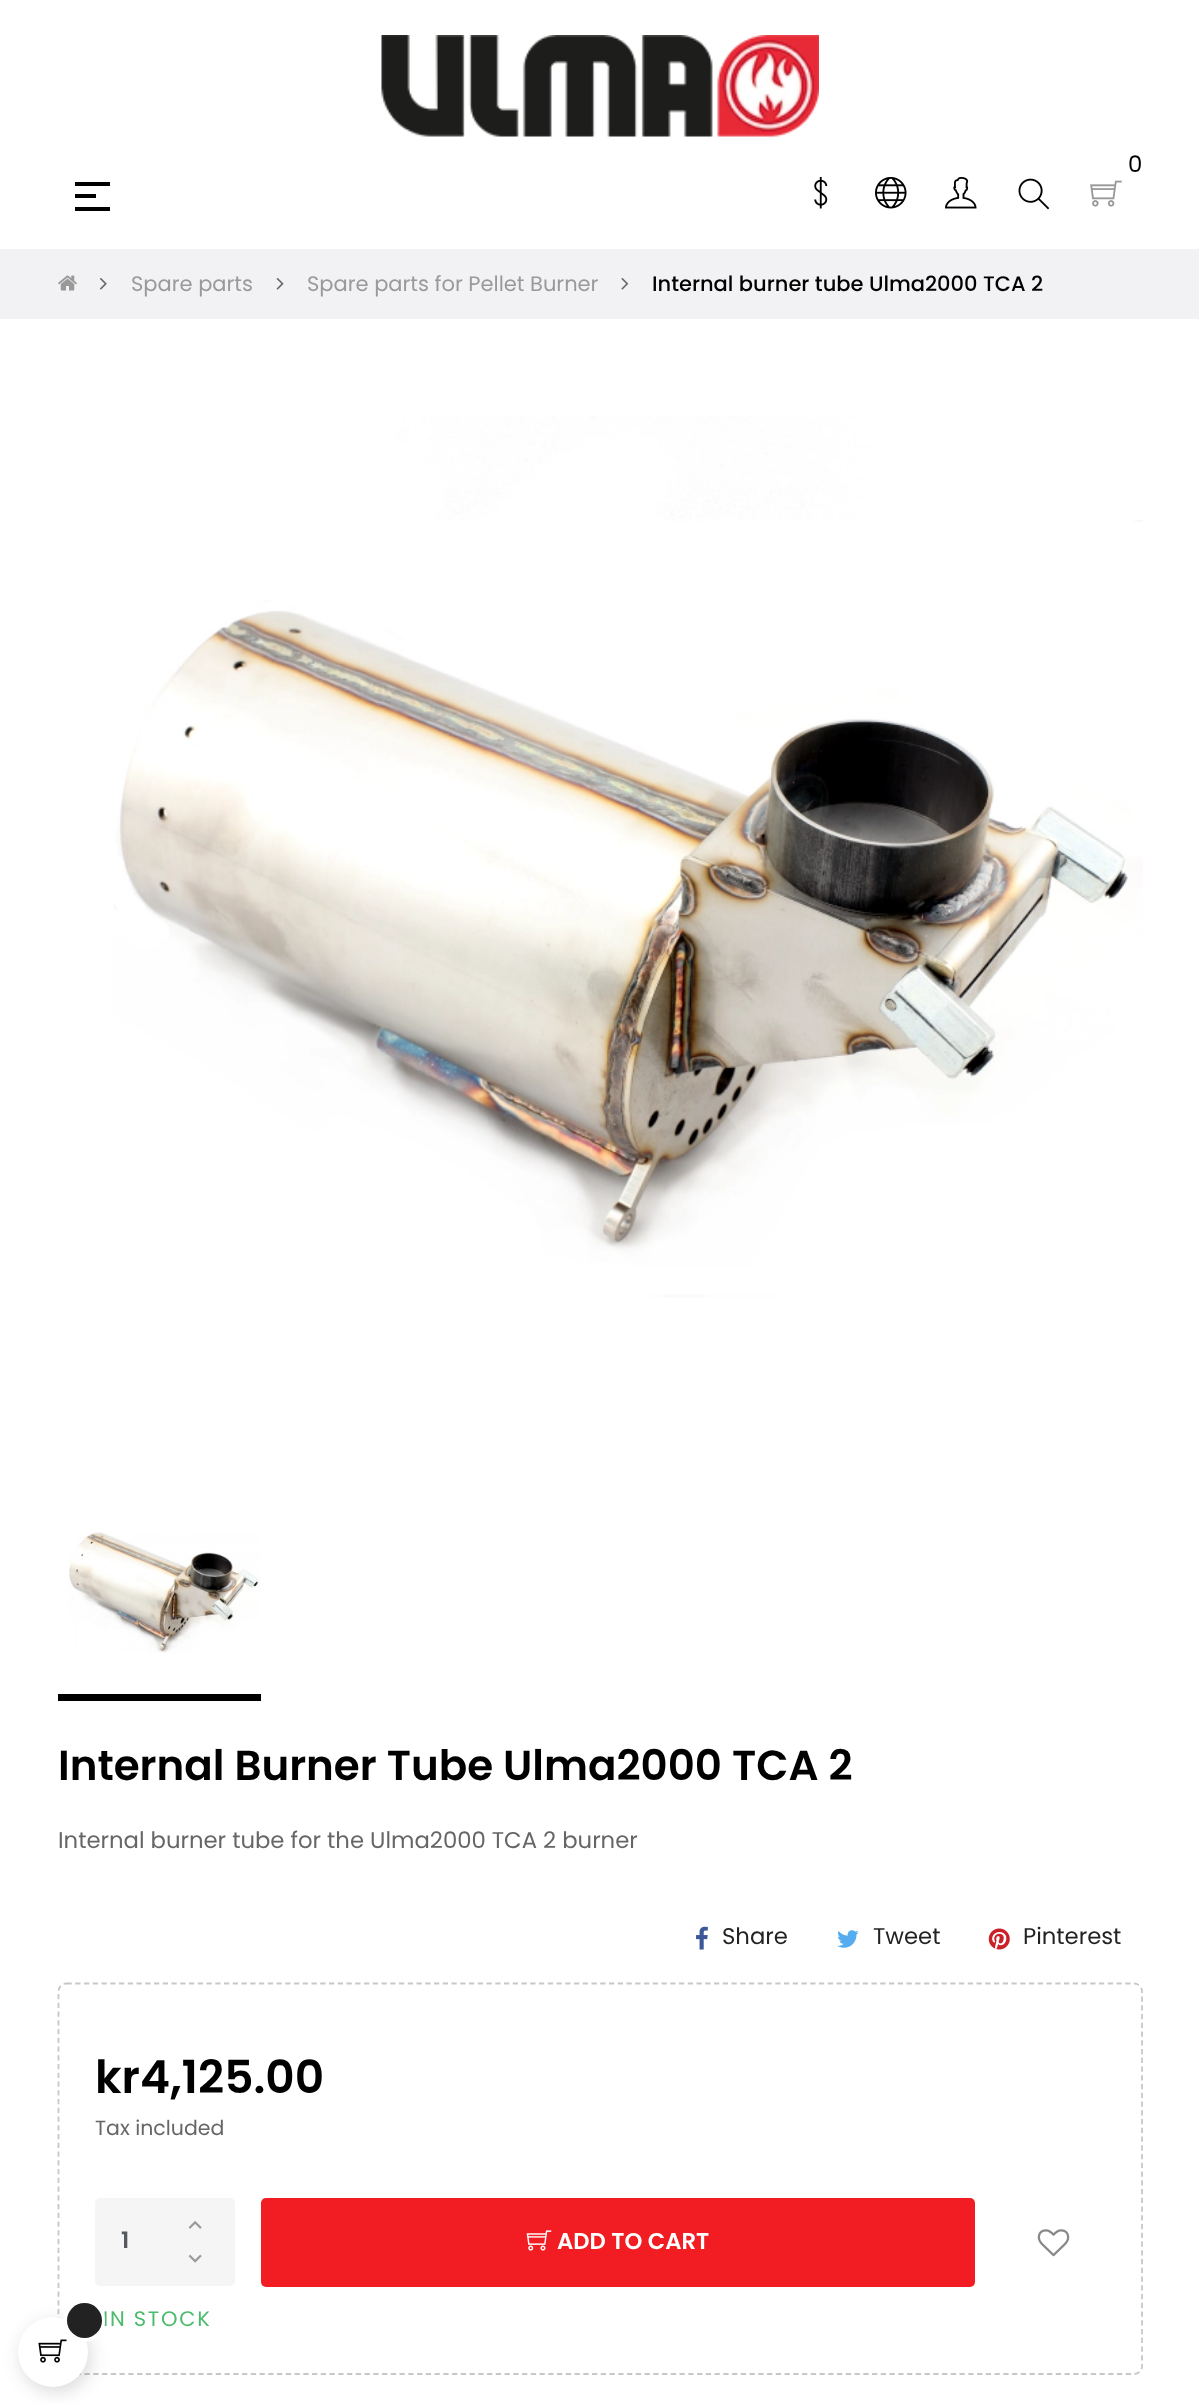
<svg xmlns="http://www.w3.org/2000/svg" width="1199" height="2404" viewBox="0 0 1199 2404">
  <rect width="100%" height="100%" fill="#fff"/>
  <image x="381" y="35" width="438" height="102" href="img/1.png"/>
  <image x="1090" y="180" width="32" height="27" href="img/2.png"/>
  <image x="814" y="177" width="14" height="32" href="img/3.png"/>
  <image x="875" y="177" width="32" height="32" href="img/4.png"/>
  <image x="945" y="177" width="32" height="32" href="img/5.png"/>
  <image x="1018" y="178" width="32" height="32" href="img/6.png"/>
  <path d="M75 182h35v4H75z" fill="#000"/>
  <path d="M75 207h35v4H75z" fill="#000"/>
  <path d="M75 194h21v4H75z" fill="#000"/>
  <path d="M0 249h1199v70H0z" fill="#f2f2f4"/>
  <image x="58" y="275" width="19" height="16" href="img/7.png"/>
  <image x="100" y="278" width="7" height="12" href="img/8.png"/>
  <image x="276" y="278" width="8" height="12" href="img/9.png"/>
  <image x="621" y="278" width="8" height="12" href="img/10.png"/>
  <image x="113" y="416" width="1030" height="882" href="img/11.png"/>
  <path d="M58 1694h203v7H58z" fill="#000"/>
  <image x="68" y="1532" width="193" height="121" href="img/12.png"/>
  <image x="696" y="1926" width="12" height="24" href="img/13.png"/>
  <image x="837" y="1930" width="22" height="18" href="img/14.png"/>
  <image x="988" y="1928" width="22" height="22" href="img/15.png"/>
  <path d="M66.5 1983.5H1134C1138.5 1983.5 1142 1987 1142 1991.5V2366C1142 2370.5 1138.5 2374 1134 2374H66.5C62 2374 58.5 2370.5 58.5 2366V1991.5C58.5 1987 62 1983.5 66.5 1983.5Z" fill="none" stroke="#c7c7c7" stroke-width="1.8" stroke-dasharray="5.25 3.5"/>
  <rect x="95" y="2198" width="140" height="88" rx="5" fill="#f5f5f5"/>
  <image x="188" y="2220" width="14" height="9" href="img/16.png"/>
  <image x="188" y="2254" width="14" height="9" href="img/17.png"/>
  <rect x="261" y="2198" width="714" height="89" rx="5" fill="#f11d22"/>
  <image x="526" y="2230" width="26" height="21" href="img/18.png"/>
  <image x="1037" y="2229" width="33" height="28" href="img/19.png"/>
  <rect x="21" y="2322" width="70" height="70" rx="35" fill="#00000026" filter="blur(9px)"/>
  <circle cx="53" cy="2352" r="35" fill="#fff"/>
  <image x="38" y="2339" width="29" height="24" href="img/20.png"/>
  <text x="1128" y="172" font-family="Poppins" font-size="22.75" fill="#000">0</text>
  <g font-family="Poppins" font-size="21" fill="#999">
    <text x="131" y="291">Spare parts</text>
    <text x="307" y="291">Spare parts for Pellet Burner</text>
  </g>
  <text x="652" y="291" font-family="Poppins" font-size="21" font-weight="500" fill="#000">Internal burner tube Ulma2000 TCA 2</text>
  <text x="58" y="1780" font-family="Poppins" font-size="42" font-weight="600" fill="#000">Internal Burner Tube Ulma2000 TCA 2</text>
  <text x="58" y="1848" font-family="Poppins" font-size="22.75" fill="#666">Internal burner tube for the Ulma2000 TCA 2 burner</text>
  <g font-family="Poppins" font-size="22.75" fill="#222">
    <text x="722" y="1944">Share</text>
    <text x="873" y="1944">Tweet</text>
    <text x="1023" y="1944">Pinterest</text>
  </g>
  <text x="95" y="2093" font-family="Poppins" font-size="45.5" font-weight="600" fill="#000">kr4,125.00</text>
  <text x="95" y="2135" font-family="Poppins" font-size="20.5" fill="#666">Tax included</text>
  <text x="121" y="2248" font-family="Poppins" font-size="22.75" font-weight="600" fill="#55595c">1</text>
  <text x="557" y="2249" font-family="Poppins" font-size="22.75" font-weight="600" fill="#fff">ADD TO CART</text>
  <text x="103" y="2326" font-family="Poppins" font-size="21" letter-spacing="1.75" fill="#4cbb6c">IN STOCK</text>
  <circle cx="84" cy="2321" r="19" fill="none" stroke="#fff" stroke-width="4"/>
  <circle cx="84.5" cy="2320.5" r="17.5" fill="#222"/>
</svg>
